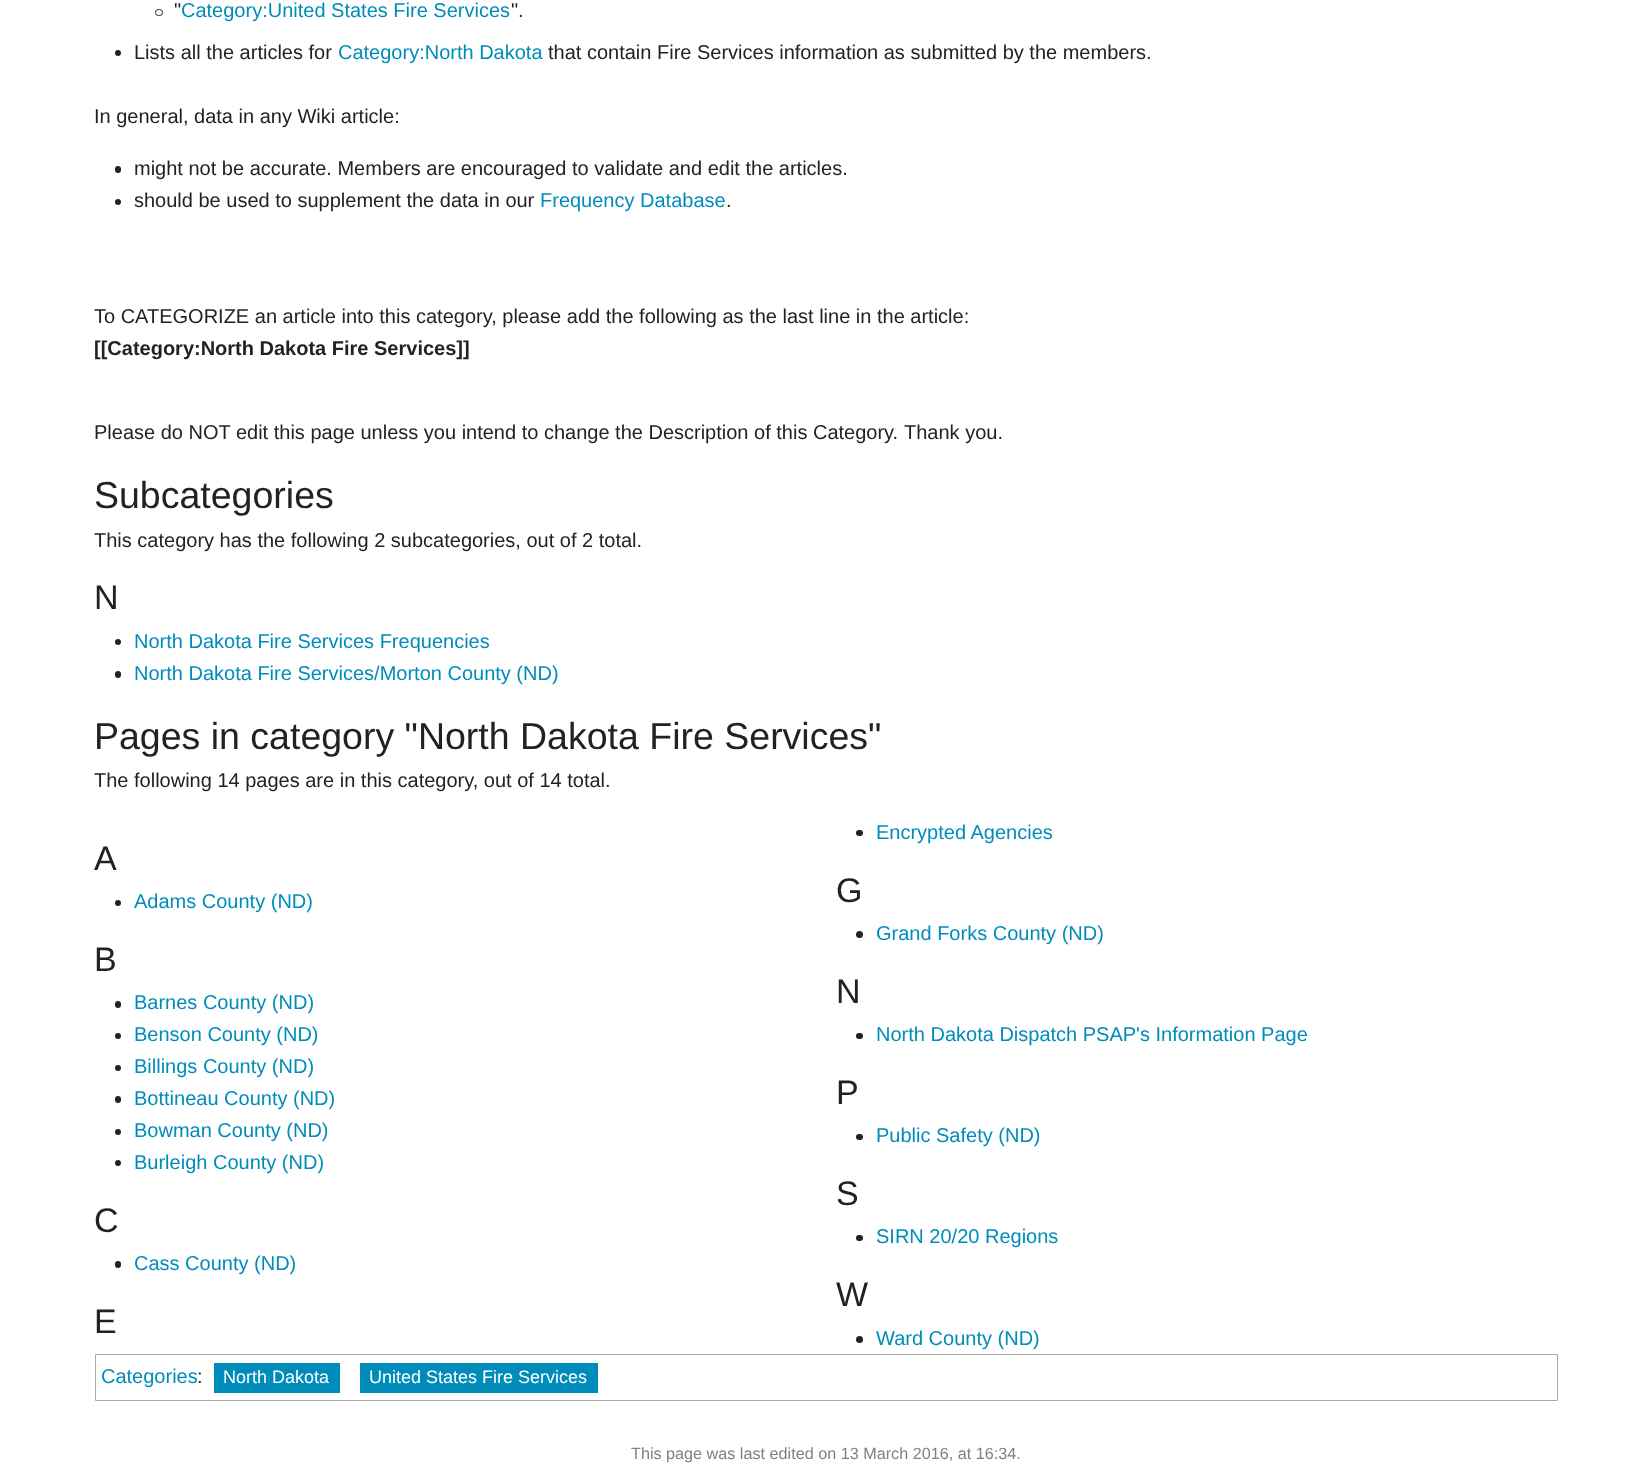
<svg xmlns="http://www.w3.org/2000/svg" width="1651" height="1474" viewBox="0 0 1651 1474">
  <rect width="100%" height="100%" fill="#fff"/>
  <rect x="155.5" y="9.5" width="7" height="6" rx="3" fill="none" stroke="#222"/>
  <circle cx="118" cy="53" r="3" fill="#222"/>
  <rect x="115" y="166" width="6" height="7" rx="3" fill="#222"/>
  <circle cx="118" cy="202" r="3" fill="#222"/>
  <circle cx="118" cy="642" r="3" fill="#222"/>
  <rect x="115" y="671" width="6" height="7" rx="3" fill="#222"/>
  <rect x="856" y="830" width="7" height="6" rx="3" fill="#222"/>
  <circle cx="118" cy="903" r="3" fill="#222"/>
  <circle cx="859.5" cy="934.5" r="3.5" fill="#222"/>
  <rect x="115" y="1001" width="6" height="7" rx="3" fill="#222"/>
  <circle cx="118" cy="1036" r="3" fill="#222"/>
  <circle cx="118" cy="1068" r="3" fill="#222"/>
  <rect x="115" y="1096" width="6" height="7" rx="3" fill="#222"/>
  <circle cx="118" cy="1132" r="3" fill="#222"/>
  <circle cx="118" cy="1163" r="3" fill="#222"/>
  <rect x="856" y="1033" width="7" height="6" rx="3" fill="#222"/>
  <rect x="856" y="1134" width="7" height="6" rx="3" fill="#222"/>
  <rect x="115" y="1261" width="6" height="7" rx="3" fill="#222"/>
  <rect x="856" y="1235" width="7" height="6" rx="3" fill="#222"/>
  <circle cx="859.5" cy="1339.5" r="3.5" fill="#222"/>
  <path d="M95.5 1354.5h1462v46H95.5z" fill="none" stroke="#aaa"/>
  <path d="M214 1363h126v30H214z" fill="#008cba"/>
  <path d="M360 1363h238v30H360z" fill="#008cba"/>
  <text x="174" y="17" font-family="Liberation Sans" font-size="20" fill="#222">"</text>
  <text x="181" y="17" font-family="Liberation Sans" font-size="20" fill="#008cba">Category:United States Fire Services</text>
  <g font-family="Liberation Sans" font-size="20" fill="#222">
    <text x="511" y="17">".</text>
    <text x="134" y="59">Lists all the articles for</text>
  </g>
  <text x="338" y="59" font-family="Liberation Sans" font-size="20" fill="#008cba">Category:North Dakota</text>
  <g font-family="Liberation Sans" font-size="20" fill="#222">
    <text x="548" y="59">that contain Fire Services information as submitted by the members.</text>
    <text x="94" y="123">In general, data in any Wiki article:</text>
    <text x="134" y="175">might not be accurate. Members are encouraged to validate and edit the articles.</text>
    <text x="134" y="207">should be used to supplement the data in our</text>
  </g>
  <text x="540" y="207" font-family="Liberation Sans" font-size="20" fill="#008cba">Frequency Database</text>
  <g font-family="Liberation Sans" font-size="20" fill="#222">
    <text x="726" y="207">.</text>
    <text x="94" y="323">To CATEGORIZE an article into this category, please add the following as the last line in the article:</text>
  </g>
  <text x="94" y="355" font-family="Liberation Sans" font-size="20" font-weight="bold" fill="#222">[[Category:North Dakota Fire Services]]</text>
  <g font-family="Liberation Sans" font-size="20" fill="#222">
    <text x="94" y="439">Please do NOT edit this page unless you intend to change the Description of this Category.</text>
    <text x="904" y="439">Thank you.</text>
  </g>
  <text x="94" y="508" font-family="Liberation Sans" font-size="37.5" fill="#222">Subcategories</text>
  <text x="94" y="547" font-family="Liberation Sans" font-size="20" fill="#222">This category has the following 2 subcategories, out of 2 total.</text>
  <text x="94" y="609" font-family="Liberation Sans" font-size="34" fill="#222">N</text>
  <g font-family="Liberation Sans" font-size="20" fill="#008cba">
    <text x="134" y="648">North Dakota Fire Services Frequencies</text>
    <text x="134" y="680">North Dakota Fire Services/Morton County (ND)</text>
  </g>
  <text x="94" y="749" font-family="Liberation Sans" font-size="37.5" fill="#222">Pages in category "North Dakota Fire Services"</text>
  <text x="94" y="787" font-family="Liberation Sans" font-size="20" fill="#222">The following 14 pages are in this category, out of 14 total.</text>
  <text x="876" y="839" font-family="Liberation Sans" font-size="20" fill="#008cba">Encrypted Agencies</text>
  <g font-family="Liberation Sans" font-size="34" fill="#222">
    <text x="94" y="1333">E</text>
    <text x="94" y="870">A</text>
  </g>
  <text x="134" y="908" font-family="Liberation Sans" font-size="20" fill="#008cba">Adams County (ND)</text>
  <text x="836" y="902" font-family="Liberation Sans" font-size="34" fill="#222">G</text>
  <text x="876" y="940" font-family="Liberation Sans" font-size="20" fill="#008cba">Grand Forks County (ND)</text>
  <text x="94" y="971" font-family="Liberation Sans" font-size="34" fill="#222">B</text>
  <g font-family="Liberation Sans" font-size="20" fill="#008cba">
    <text x="134" y="1009">Barnes County (ND)</text>
    <text x="134" y="1041">Benson County (ND)</text>
    <text x="134" y="1073">Billings County (ND)</text>
    <text x="134" y="1105">Bottineau County (ND)</text>
    <text x="134" y="1137">Bowman County (ND)</text>
    <text x="134" y="1169">Burleigh County (ND)</text>
  </g>
  <text x="836" y="1003" font-family="Liberation Sans" font-size="34" fill="#222">N</text>
  <text x="876" y="1041" font-family="Liberation Sans" font-size="20" fill="#008cba">North Dakota Dispatch PSAP's Information Page</text>
  <text x="836" y="1104" font-family="Liberation Sans" font-size="34" fill="#222">P</text>
  <text x="876" y="1142" font-family="Liberation Sans" font-size="20" fill="#008cba">Public Safety (ND)</text>
  <text x="94" y="1232" font-family="Liberation Sans" font-size="34" fill="#222">C</text>
  <text x="134" y="1270" font-family="Liberation Sans" font-size="20" fill="#008cba">Cass County (ND)</text>
  <text x="836" y="1205" font-family="Liberation Sans" font-size="34" fill="#222">S</text>
  <text x="876" y="1243" font-family="Liberation Sans" font-size="20" fill="#008cba">SIRN 20/20 Regions</text>
  <text x="836" y="1306" font-family="Liberation Sans" font-size="34" fill="#222">W</text>
  <g font-family="Liberation Sans" font-size="20" fill="#008cba">
    <text x="876" y="1345">Ward County (ND)</text>
    <text x="101" y="1383">Categories</text>
  </g>
  <text x="197" y="1383" font-family="Liberation Sans" font-size="20" fill="#222">:</text>
  <g font-family="Liberation Sans" font-size="18" fill="#fff">
    <text x="223" y="1383">North Dakota</text>
    <text x="369" y="1383">United States Fire Services</text>
  </g>
  <text x="631" y="1459" font-family="Liberation Sans" font-size="16.2" fill="#808080">This page was last edited on 13 March 2016, at 16:34.</text>
</svg>
